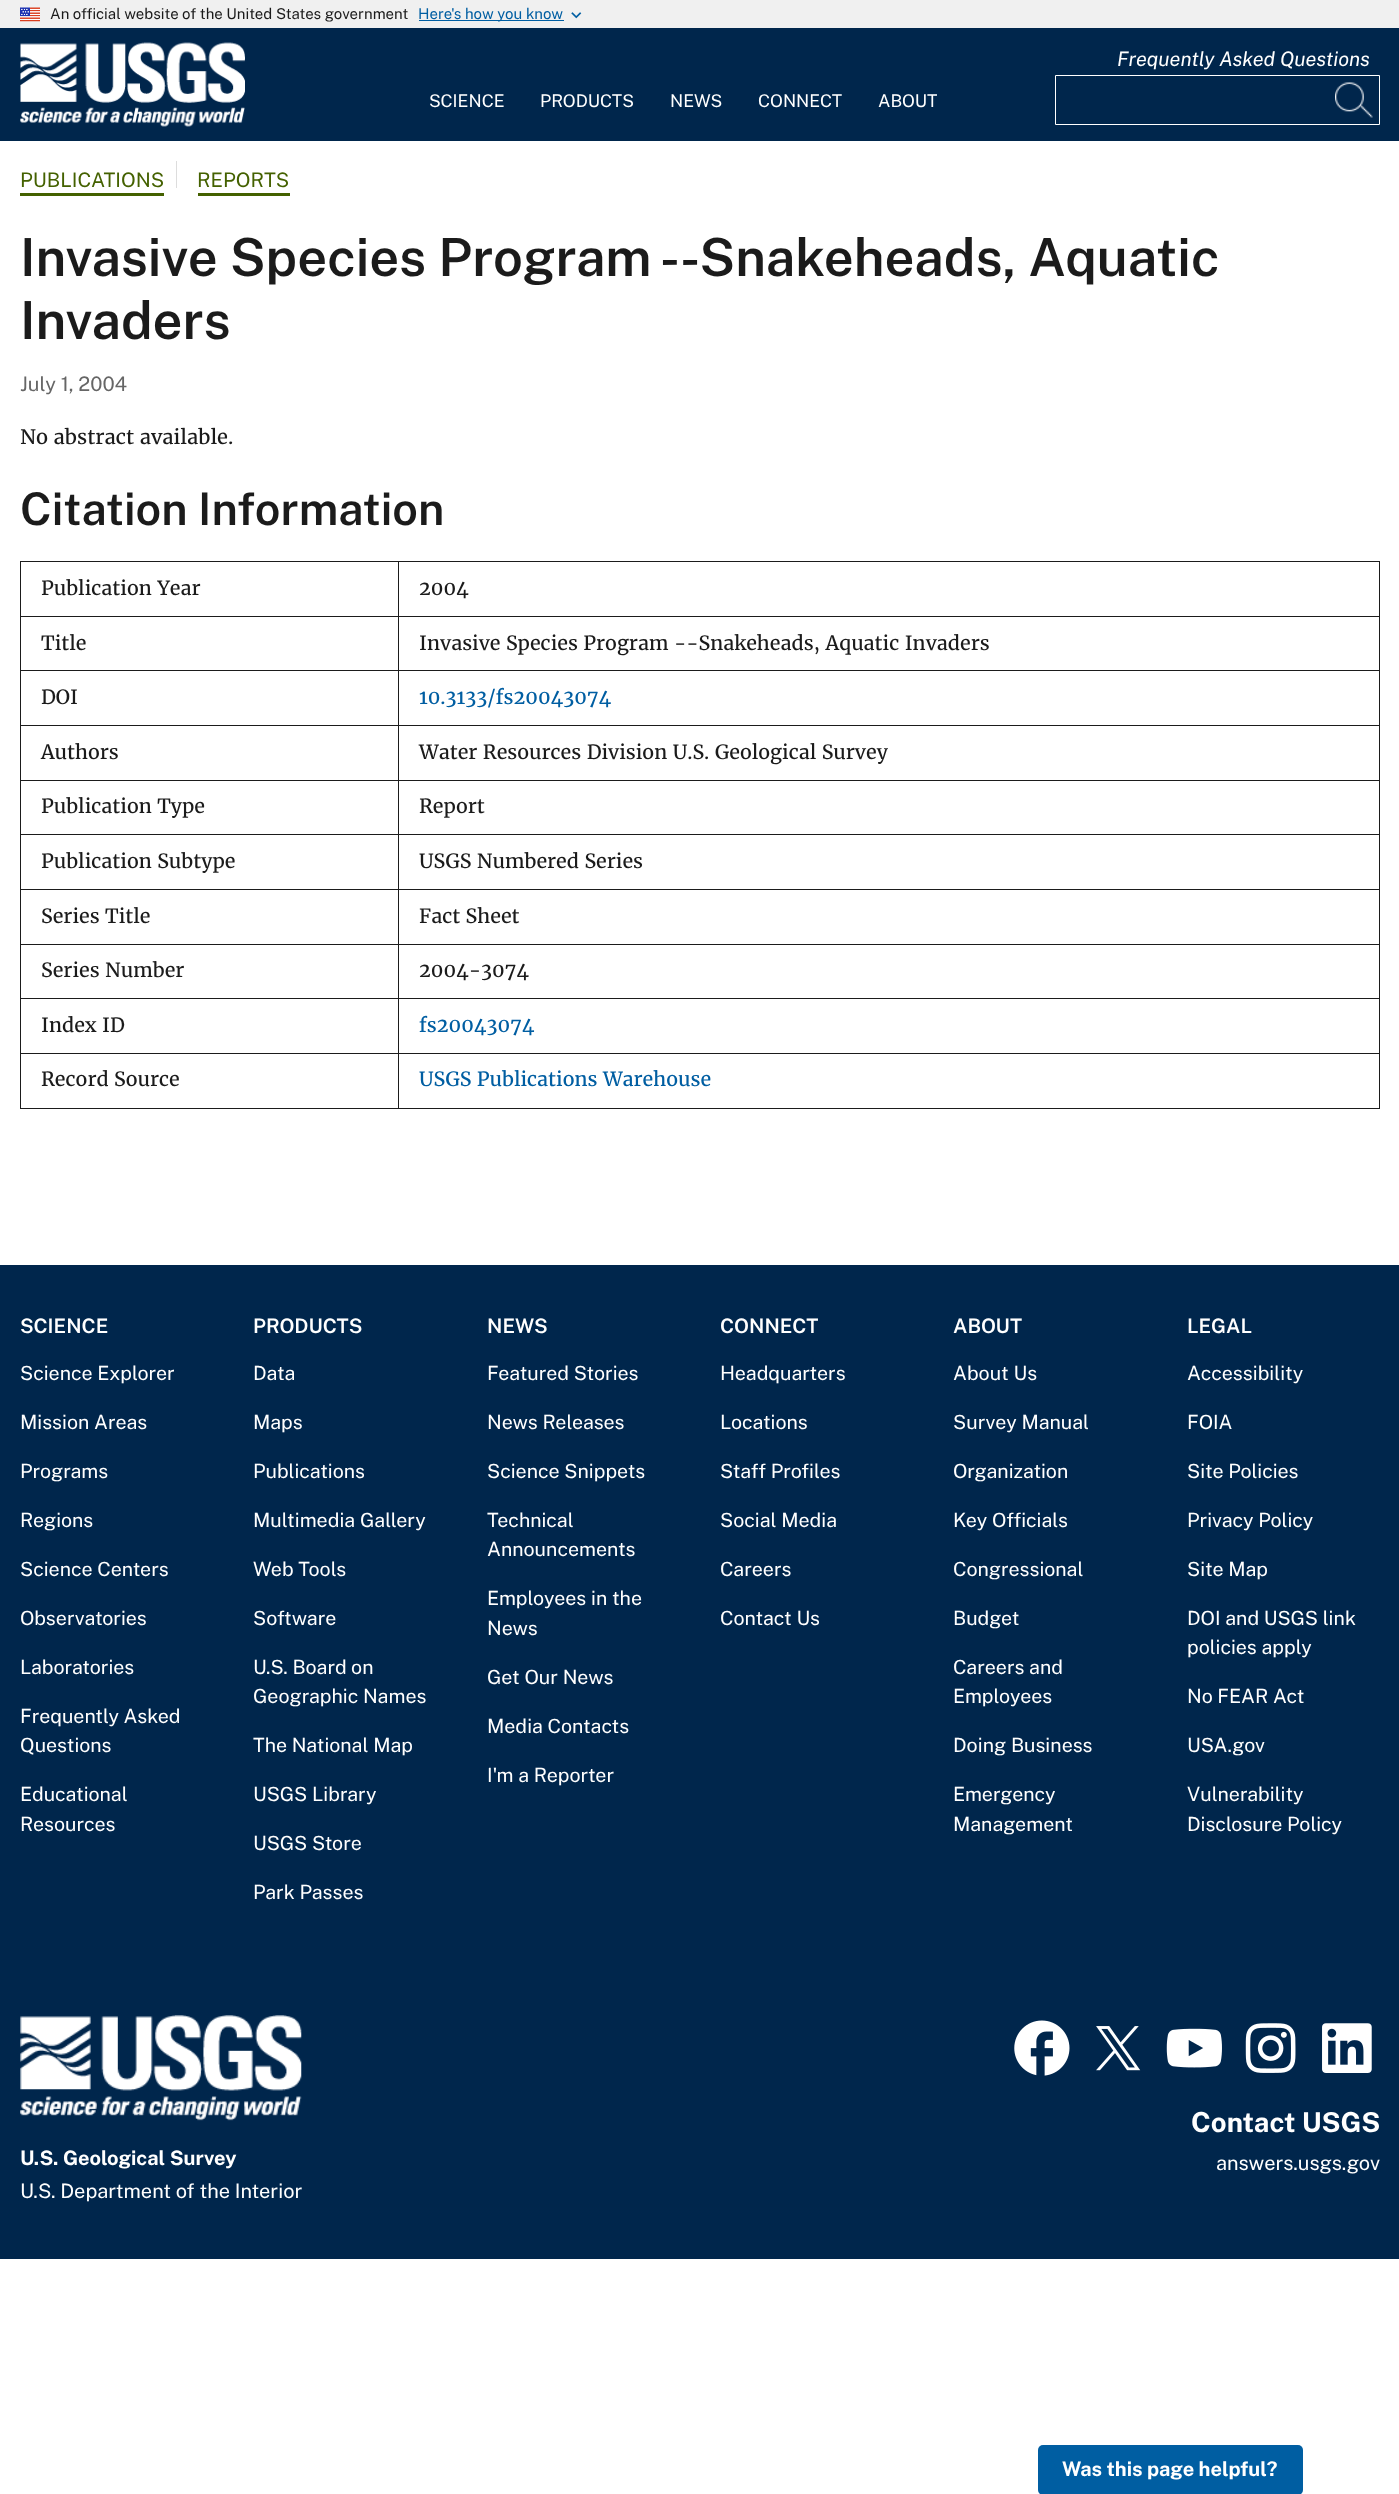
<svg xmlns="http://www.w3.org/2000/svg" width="1399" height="2494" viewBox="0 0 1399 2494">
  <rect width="100%" height="100%" fill="#fff"/>
  <path d="M0 0h1399v28H0z" fill="#f0f0f0"/>
  <image x="20" y="7" width="20" height="15" href="img/1.png"/>
  <path d="M419 20h145v1H419z" fill="#005ea2"/>
  <image x="571" y="12" width="11" height="7" href="img/2.png"/>
  <path d="M0 28h1399v113H0z" fill="#00264c"/>
  <image x="20" y="42" width="225" height="85" href="img/3.png"/>
  <path d="M1055.5 75.5h324v49H1055.5z" fill="none" stroke="#fff"/>
  <image x="1335" y="82" width="38" height="36" href="img/4.png"/>
  <path d="M20 193h144v3H20z" fill="#446100"/>
  <path d="M176 161h1v27H176z" fill="#ddd"/>
  <path d="M198 193h92v3H198z" fill="#446100"/>
  <path d="M398 561h982v1H398z" fill="#1b1b1b"/>
  <path d="M398 616h982v1H398z" fill="#1b1b1b"/>
  <path d="M398 670h982v1H398z" fill="#1b1b1b"/>
  <path d="M398 725h982v1H398z" fill="#1b1b1b"/>
  <path d="M398 780h982v1H398z" fill="#1b1b1b"/>
  <path d="M398 834h982v1H398z" fill="#1b1b1b"/>
  <path d="M398 889h982v1H398z" fill="#1b1b1b"/>
  <path d="M398 944h982v1H398z" fill="#1b1b1b"/>
  <path d="M398 998h982v1H398z" fill="#1b1b1b"/>
  <path d="M398 1053h982v1H398z" fill="#1b1b1b"/>
  <path d="M1379 1053h1v56H1379z" fill="#1b1b1b"/>
  <path d="M398 1108h982v1H398z" fill="#1b1b1b"/>
  <path d="M398 1053h1v56H398z" fill="#1b1b1b"/>
  <path d="M20 1053h379v1H20z" fill="#1b1b1b"/>
  <path d="M398 998h1v56H398z" fill="#1b1b1b"/>
  <path d="M20 998h379v1H20z" fill="#1b1b1b"/>
  <path d="M398 944h1v55H398z" fill="#1b1b1b"/>
  <path d="M20 944h379v1H20z" fill="#1b1b1b"/>
  <path d="M398 889h1v56H398z" fill="#1b1b1b"/>
  <path d="M20 889h379v1H20z" fill="#1b1b1b"/>
  <path d="M398 834h1v56H398z" fill="#1b1b1b"/>
  <path d="M20 834h379v1H20z" fill="#1b1b1b"/>
  <path d="M398 780h1v55H398z" fill="#1b1b1b"/>
  <path d="M20 780h379v1H20z" fill="#1b1b1b"/>
  <path d="M398 725h1v56H398z" fill="#1b1b1b"/>
  <path d="M20 725h379v1H20z" fill="#1b1b1b"/>
  <path d="M398 670h1v56H398z" fill="#1b1b1b"/>
  <path d="M20 670h379v1H20z" fill="#1b1b1b"/>
  <path d="M398 616h1v55H398z" fill="#1b1b1b"/>
  <path d="M20 616h379v1H20z" fill="#1b1b1b"/>
  <path d="M398 561h1v57H398z" fill="#1b1b1b"/>
  <path d="M20 561h379v1H20z" fill="#1b1b1b"/>
  <path d="M20 1108h379v1H20z" fill="#1b1b1b"/>
  <path d="M20 1053h1v56H20z" fill="#1b1b1b"/>
  <path d="M20 998h1v56H20z" fill="#1b1b1b"/>
  <path d="M20 944h1v55H20z" fill="#1b1b1b"/>
  <path d="M20 889h1v56H20z" fill="#1b1b1b"/>
  <path d="M20 834h1v56H20z" fill="#1b1b1b"/>
  <path d="M20 780h1v55H20z" fill="#1b1b1b"/>
  <path d="M20 725h1v56H20z" fill="#1b1b1b"/>
  <path d="M20 670h1v56H20z" fill="#1b1b1b"/>
  <path d="M20 616h1v55H20z" fill="#1b1b1b"/>
  <path d="M20 561h1v57H20z" fill="#1b1b1b"/>
  <path d="M1379 998h1v56H1379z" fill="#1b1b1b"/>
  <path d="M1379 944h1v55H1379z" fill="#1b1b1b"/>
  <path d="M1379 889h1v56H1379z" fill="#1b1b1b"/>
  <path d="M1379 834h1v56H1379z" fill="#1b1b1b"/>
  <path d="M1379 780h1v55H1379z" fill="#1b1b1b"/>
  <path d="M1379 725h1v56H1379z" fill="#1b1b1b"/>
  <path d="M1379 670h1v56H1379z" fill="#1b1b1b"/>
  <path d="M1379 616h1v55H1379z" fill="#1b1b1b"/>
  <path d="M1379 561h1v57H1379z" fill="#1b1b1b"/>
  <path d="M0 1265h1399v994H0z" fill="#00264c"/>
  <image x="20" y="2015" width="282" height="106" href="img/5.png"/>
  <image x="1014" y="2020" width="56" height="56" href="img/6.png"/>
  <image x="1096" y="2026" width="45" height="45" href="img/7.png"/>
  <image x="1166" y="2028" width="56" height="40" href="img/8.png"/>
  <image x="1245" y="2023" width="51" height="50" href="img/9.png"/>
  <image x="1322" y="2023" width="50" height="50" href="img/10.png"/>
  <rect x="1038" y="2445" width="265" height="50" rx="5" fill="#005ea2"/>
  <text x="50" y="19" font-family="Public Sans" font-size="15" fill="#1b1b1b">An official website of the United States government</text>
  <text x="418" y="19" font-family="Public Sans" font-size="15" fill="#005ea2">Here's how you know</text>
  <text x="1117" y="66" font-family="Public Sans" font-size="20" font-style="italic" fill="#fff">Frequently Asked Questions</text>
  <g font-family="Public Sans" font-size="17.5" fill="#fff">
    <text x="429" y="107">SCIENCE</text>
    <text x="540" y="107">PRODUCTS</text>
    <text x="670" y="107">NEWS</text>
    <text x="758" y="107">CONNECT</text>
    <text x="878" y="107">ABOUT</text>
  </g>
  <g font-family="Public Sans" font-size="20" fill="#446100">
    <text x="20" y="187">PUBLICATIONS</text>
    <text x="197" y="187">REPORTS</text>
  </g>
  <g font-family="Public Sans" font-size="52.5" font-weight="600" fill="#1b1b1b">
    <text x="20" y="276">Invasive Species Program --Snakeheads, Aquatic</text>
    <text x="20" y="339">Invaders</text>
  </g>
  <text x="20" y="391" font-family="Public Sans" font-size="20" fill="#666">July 1, 2004</text>
  <text x="20" y="444" font-family="Merriweather" font-size="20" fill="#1b1b1b">No abstract available.</text>
  <text x="20" y="525" font-family="Public Sans" font-size="45" font-weight="600" fill="#1b1b1b">Citation Information</text>
  <g font-family="Merriweather" font-size="19.6" fill="#1b1b1b">
    <text x="41" y="595">Publication Year</text>
    <text x="419" y="595">2004</text>
    <text x="41" y="650">Title</text>
    <text x="419" y="650">Invasive Species Program --Snakeheads, Aquatic Invaders</text>
    <text x="41" y="704">DOI</text>
  </g>
  <text x="419" y="704" font-family="Merriweather" font-size="19.6" fill="#005ea2">10.3133/fs20043074</text>
  <g font-family="Merriweather" font-size="19.6" fill="#1b1b1b">
    <text x="41" y="759">Authors</text>
    <text x="419" y="759">Water Resources Division U.S. Geological Survey</text>
    <text x="41" y="813">Publication Type</text>
    <text x="419" y="813">Report</text>
    <text x="41" y="868">Publication Subtype</text>
    <text x="419" y="868">USGS Numbered Series</text>
    <text x="41" y="923">Series Title</text>
    <text x="419" y="923">Fact Sheet</text>
    <text x="41" y="977">Series Number</text>
    <text x="419" y="977">2004-3074</text>
    <text x="41" y="1032">Index ID</text>
  </g>
  <text x="419" y="1032" font-family="Merriweather" font-size="19.6" fill="#005ea2">fs20043074</text>
  <text x="41" y="1086" font-family="Merriweather" font-size="19.6" fill="#1b1b1b">Record Source</text>
  <text x="419" y="1086" font-family="Merriweather" font-size="19.6" fill="#005ea2">USGS Publications Warehouse</text>
  <text x="20" y="1333" font-family="Public Sans" font-size="20" font-weight="600" fill="#fff">SCIENCE</text>
  <g font-family="Public Sans" font-size="19.6" fill="#fff">
    <text x="20" y="1380">Science Explorer</text>
    <text x="20" y="1429">Mission Areas</text>
    <text x="20" y="1478">Programs</text>
    <text x="20" y="1527">Regions</text>
    <text x="20" y="1576">Science Centers</text>
    <text x="20" y="1625">Observatories</text>
    <text x="20" y="1674">Laboratories</text>
    <text x="20" y="1723">Frequently Asked</text>
    <text x="20" y="1752">Questions</text>
    <text x="20" y="1801">Educational</text>
    <text x="20" y="1831">Resources</text>
  </g>
  <text x="253" y="1333" font-family="Public Sans" font-size="20" font-weight="600" fill="#fff">PRODUCTS</text>
  <g font-family="Public Sans" font-size="19.6" fill="#fff">
    <text x="253" y="1380">Data</text>
    <text x="253" y="1429">Maps</text>
    <text x="253" y="1478">Publications</text>
    <text x="253" y="1527">Multimedia Gallery</text>
    <text x="253" y="1576">Web Tools</text>
    <text x="253" y="1625">Software</text>
    <text x="253" y="1674">U.S. Board on</text>
    <text x="253" y="1703">Geographic Names</text>
    <text x="253" y="1752">The National Map</text>
    <text x="253" y="1801">USGS Library</text>
    <text x="253" y="1850">USGS Store</text>
    <text x="253" y="1899">Park Passes</text>
  </g>
  <text x="487" y="1333" font-family="Public Sans" font-size="20" font-weight="600" fill="#fff">NEWS</text>
  <g font-family="Public Sans" font-size="19.6" fill="#fff">
    <text x="487" y="1380">Featured Stories</text>
    <text x="487" y="1429">News Releases</text>
    <text x="487" y="1478">Science Snippets</text>
    <text x="487" y="1527">Technical</text>
    <text x="487" y="1556">Announcements</text>
    <text x="487" y="1605">Employees in the</text>
    <text x="487" y="1635">News</text>
    <text x="487" y="1684">Get Our News</text>
    <text x="487" y="1733">Media Contacts</text>
    <text x="487" y="1782">I'm a Reporter</text>
  </g>
  <text x="720" y="1333" font-family="Public Sans" font-size="20" font-weight="600" fill="#fff">CONNECT</text>
  <g font-family="Public Sans" font-size="19.6" fill="#fff">
    <text x="720" y="1380">Headquarters</text>
    <text x="720" y="1429">Locations</text>
    <text x="720" y="1478">Staff Profiles</text>
    <text x="720" y="1527">Social Media</text>
    <text x="720" y="1576">Careers</text>
    <text x="720" y="1625">Contact Us</text>
  </g>
  <text x="953" y="1333" font-family="Public Sans" font-size="20" font-weight="600" fill="#fff">ABOUT</text>
  <g font-family="Public Sans" font-size="19.6" fill="#fff">
    <text x="953" y="1380">About Us</text>
    <text x="953" y="1429">Survey Manual</text>
    <text x="953" y="1478">Organization</text>
    <text x="953" y="1527">Key Officials</text>
    <text x="953" y="1576">Congressional</text>
    <text x="953" y="1625">Budget</text>
    <text x="953" y="1674">Careers and</text>
    <text x="953" y="1703">Employees</text>
    <text x="953" y="1752">Doing Business</text>
    <text x="953" y="1801">Emergency</text>
    <text x="953" y="1831">Management</text>
  </g>
  <text x="1187" y="1333" font-family="Public Sans" font-size="20" font-weight="600" fill="#fff">LEGAL</text>
  <g font-family="Public Sans" font-size="19.6" fill="#fff">
    <text x="1187" y="1380">Accessibility</text>
    <text x="1187" y="1429">FOIA</text>
    <text x="1187" y="1478">Site Policies</text>
    <text x="1187" y="1527">Privacy Policy</text>
    <text x="1187" y="1576">Site Map</text>
    <text x="1187" y="1625">DOI and USGS link</text>
    <text x="1187" y="1654">policies apply</text>
    <text x="1187" y="1703">No FEAR Act</text>
    <text x="1187" y="1752">USA.gov</text>
    <text x="1187" y="1801">Vulnerability</text>
    <text x="1187" y="1831">Disclosure Policy</text>
  </g>
  <text x="20" y="2165" font-family="Public Sans" font-size="20" font-weight="bold" fill="#fff">U.S. Geological Survey</text>
  <text x="20" y="2198" font-family="Public Sans" font-size="20" fill="#fff">U.S. Department of the Interior</text>
  <text x="1191" y="2132" font-family="Public Sans" font-size="27.5" font-weight="bold" fill="#fff">Contact USGS</text>
  <text x="1216" y="2170" font-family="Public Sans" font-size="20" fill="#fff">answers.usgs.gov</text>
  <text x="1062" y="2476" font-family="Public Sans" font-size="20" font-weight="bold" fill="#fff">Was this page helpful?</text>
</svg>
